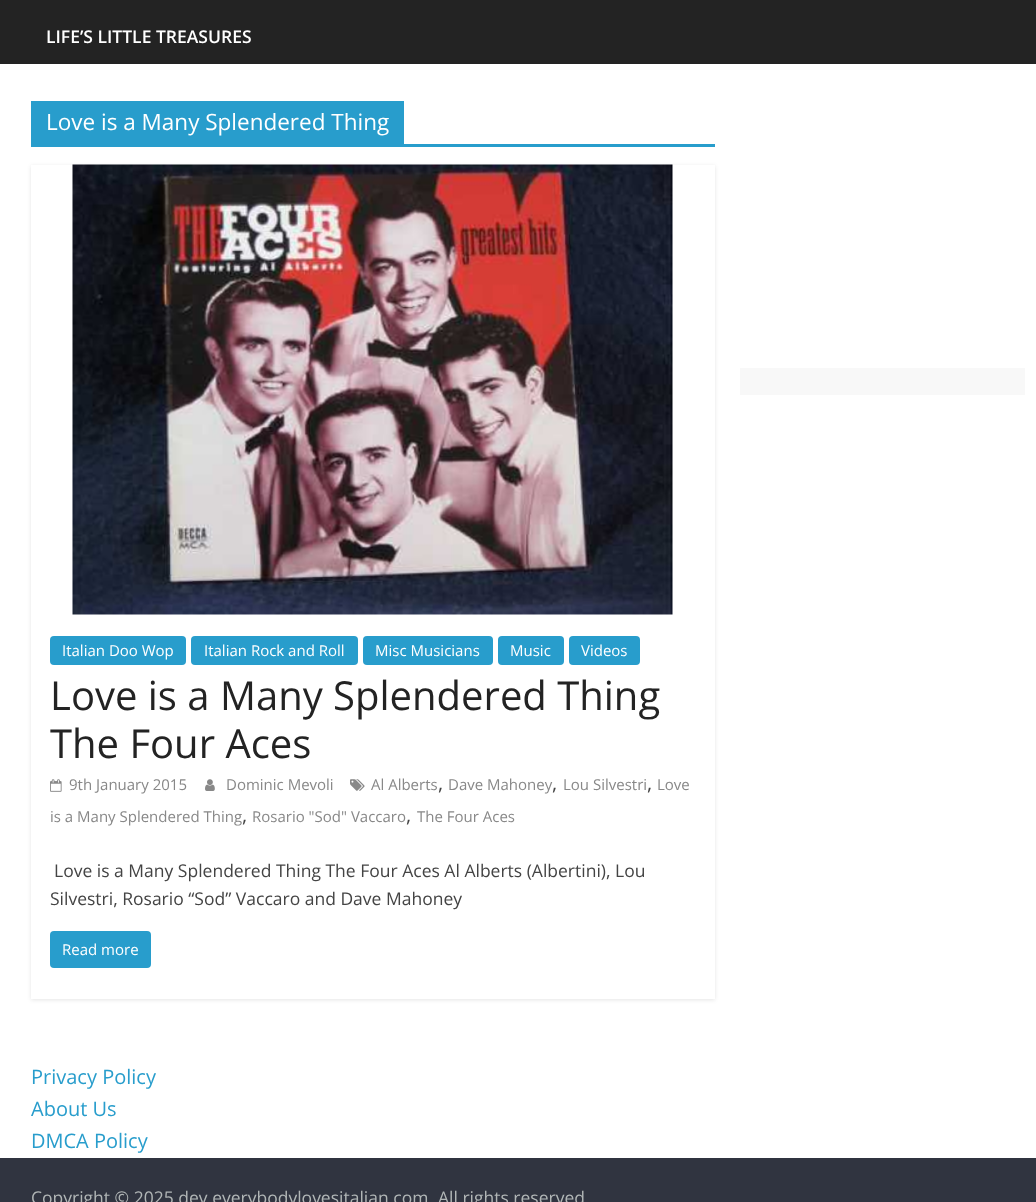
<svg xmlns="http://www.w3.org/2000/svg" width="1036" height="1202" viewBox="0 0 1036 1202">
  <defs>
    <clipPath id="clip1"><path d="M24 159H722V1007H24ZM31 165H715V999H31Z" clip-rule="evenodd"/></clipPath>
  </defs>
  <rect width="100%" height="100%" fill="#fff"/>
  <path d="M0 0h1036v64H0z" fill="#232323"/>
  <path d="M31 144h684v3H31z" fill="#289dcc"/>
  <path d="M31 101h373v43H31z" fill="#289dcc"/>
  <g clip-path="url(#clip1)">
    <path d="M31 166h684v834H31z" fill="#0000001a" filter="blur(2px)"/>
  </g>
  <image x="72" y="164" width="601" height="451" href="img/1.png"/>
  <rect x="50" y="636" width="136" height="29" rx="4" fill="#289dcc"/>
  <rect x="191" y="636" width="167" height="29" rx="4" fill="#289dcc"/>
  <rect x="363" y="636" width="130" height="29" rx="4" fill="#289dcc"/>
  <rect x="498" y="636" width="66" height="29" rx="4" fill="#289dcc"/>
  <rect x="569" y="636" width="71" height="29" rx="4" fill="#289dcc"/>
  <image x="350" y="779" width="15" height="12" href="img/2.png"/>
  <image x="50" y="779" width="12" height="13" href="img/3.png"/>
  <image x="205" y="779" width="10" height="12" href="img/4.png"/>
  <rect x="50" y="931" width="101" height="37" rx="4" fill="#289dcc"/>
  <path d="M740 368h285v27H740z" fill="#f8f8f8"/>
  <path d="M0 1158h1036v44H0z" fill="#303440"/>
  <text x="46" y="43" font-family="Open Sans" font-size="17.5" font-weight="600" fill="#fff">LIFE’S LITTLE TREASURES</text>
  <text x="46" y="130" font-family="Open Sans" font-size="22.5" fill="#fff">Love is a Many Splendered Thing</text>
  <g font-family="Open Sans" font-size="15" fill="#fff">
    <text x="62" y="656">Italian Doo Wop</text>
    <text x="204" y="656">Italian Rock and Roll</text>
    <text x="375" y="656">Misc Musicians</text>
    <text x="510" y="656">Music</text>
    <text x="581" y="656">Videos</text>
  </g>
  <g font-family="Open Sans" font-size="40" fill="#232323">
    <text x="50" y="710">Love is a Many Splendered Thing</text>
    <text x="50" y="758">The Four Aces</text>
  </g>
  <text x="371" y="790" font-family="Open Sans" font-size="15" fill="#888">Al Alberts</text>
  <text x="438" y="790" font-family="Open Sans" font-size="20" fill="#444">,</text>
  <text x="448" y="790" font-family="Open Sans" font-size="15" fill="#888">Dave Mahoney</text>
  <text x="552" y="790" font-family="Open Sans" font-size="20" fill="#444">,</text>
  <text x="563" y="790" font-family="Open Sans" font-size="15" fill="#888">Lou Silvestri</text>
  <text x="647" y="790" font-family="Open Sans" font-size="20" fill="#444">,</text>
  <g font-family="Open Sans" font-size="15" fill="#888">
    <text x="657" y="790">Love</text>
    <text x="50" y="822">is a Many Splendered Thing</text>
  </g>
  <text x="242" y="822" font-family="Open Sans" font-size="20" fill="#444">,</text>
  <text x="252" y="822" font-family="Open Sans" font-size="15" fill="#888">Rosario "Sod" Vaccaro</text>
  <text x="406" y="822" font-family="Open Sans" font-size="20" fill="#444">,</text>
  <g font-family="Open Sans" font-size="15" fill="#888">
    <text x="417" y="822">The Four Aces</text>
    <text x="69" y="790">9th January 2015</text>
    <text x="226" y="790">Dominic Mevoli</text>
  </g>
  <g font-family="Open Sans" font-size="17.5" fill="#444">
    <text x="54" y="877">Love is a Many Splendered Thing The Four Aces Al Alberts (Albertini), Lou</text>
    <text x="50" y="905">Silvestri, Rosario “Sod” Vaccaro and Dave Mahoney</text>
  </g>
  <text x="62" y="955" font-family="Open Sans" font-size="15" fill="#fff">Read more</text>
  <g font-family="Open Sans" font-size="20" fill="#289dcc">
    <text x="31" y="1084">Privacy Policy</text>
    <text x="31" y="1116">About Us</text>
    <text x="31" y="1148">DMCA Policy</text>
  </g>
  <g font-family="Open Sans" font-size="17.5" fill="#b1b6b6">
    <text x="31" y="1204">Copyright © 2025 dev.everybodylovesitalian.com</text>
    <text x="438" y="1204">All rights reserved</text>
  </g>
</svg>
